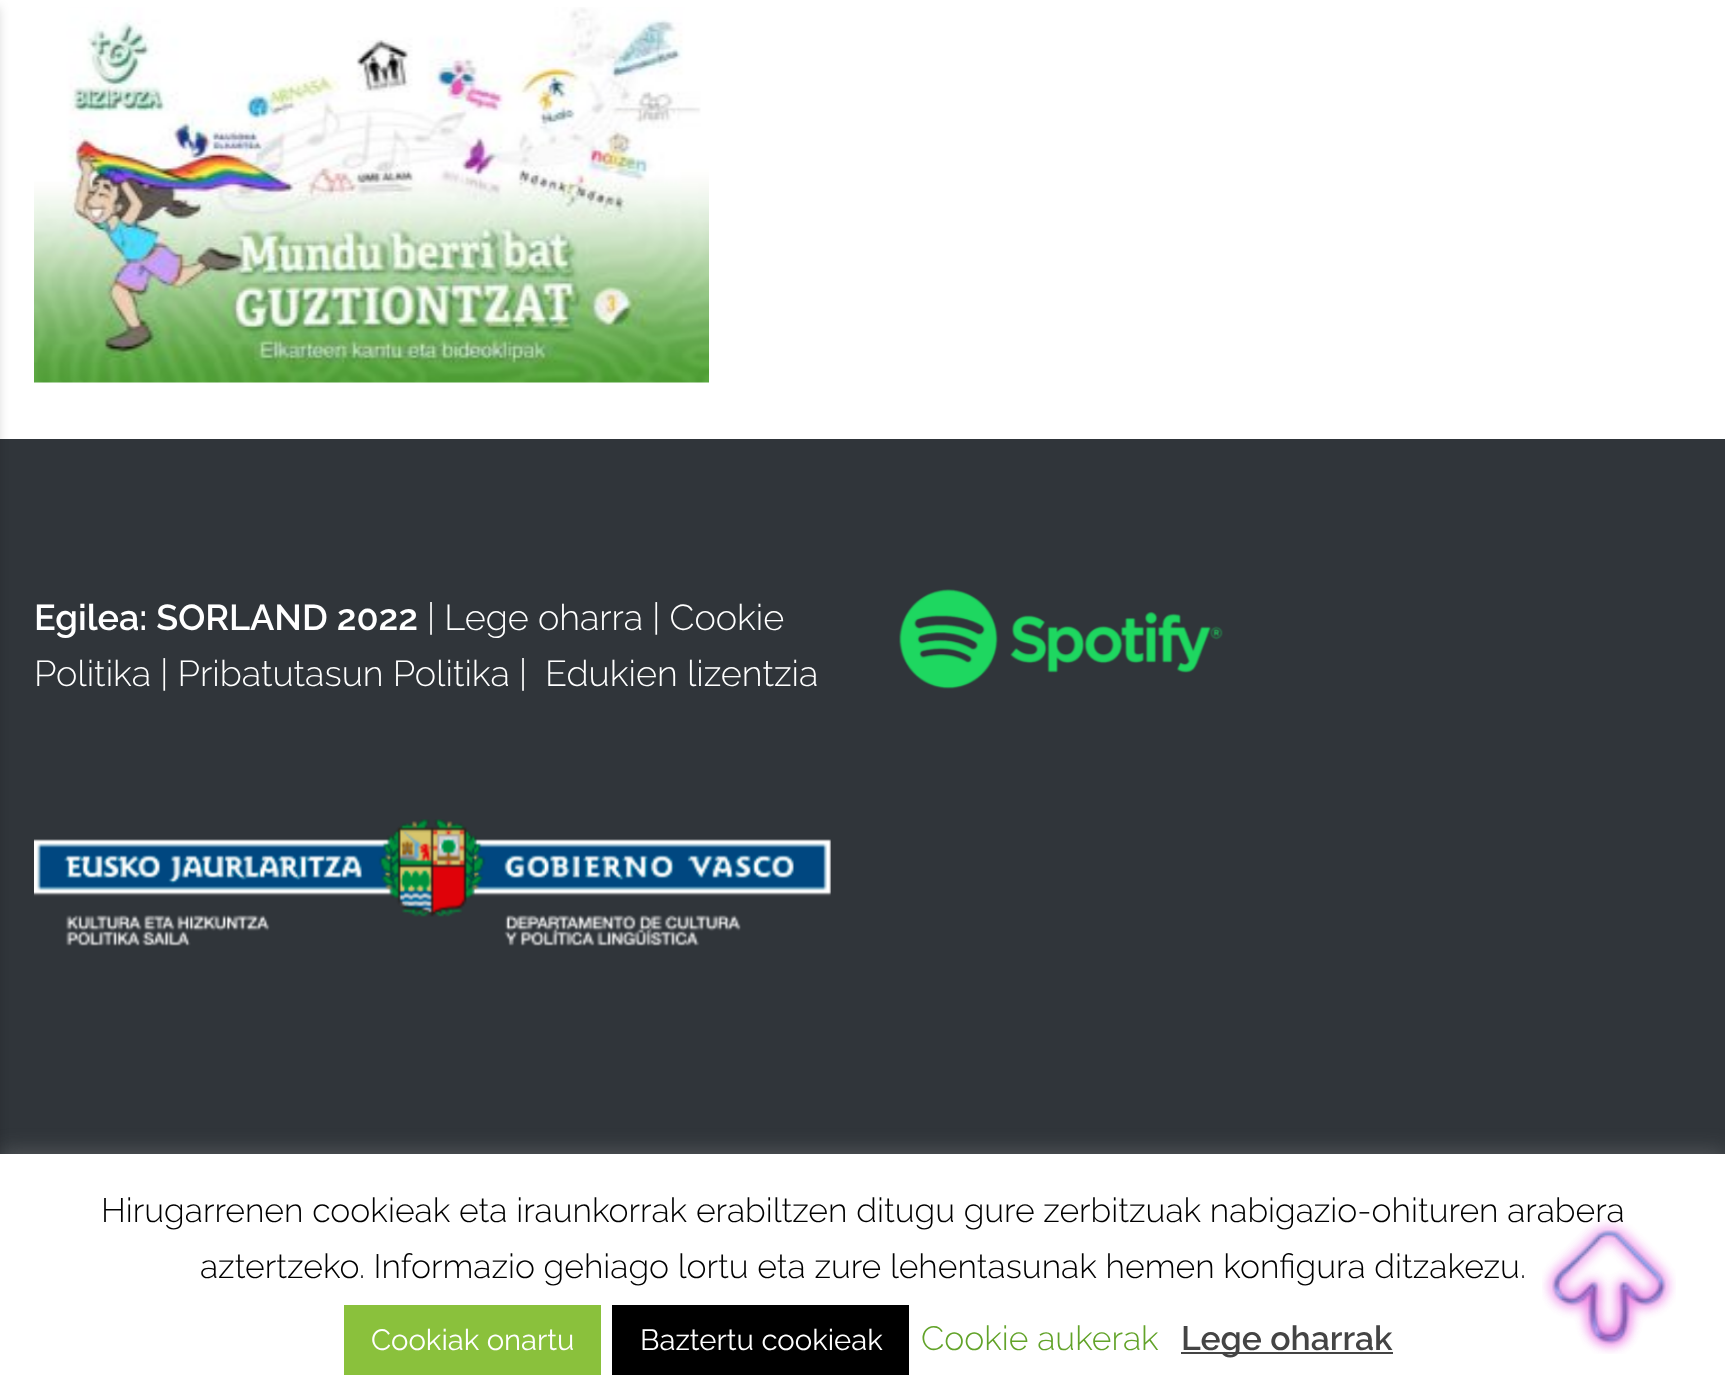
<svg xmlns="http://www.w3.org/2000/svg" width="1725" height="1400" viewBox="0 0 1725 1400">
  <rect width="100%" height="100%" fill="#fff"/>
  <path d="M0 439h1725v715H0z" fill="#30353a"/>
  <path d="M-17 7h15v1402H-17z" fill="#00000033" filter="blur(5.5px)"/>
  <image x="34" y="7" width="675" height="376" href="img/1.png"/>
  <image x="34" y="819" width="797" height="127" href="img/2.png"/>
  <image x="899" y="589" width="324" height="100" href="img/3.png"/>
  <path d="M0 1152h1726v248H0z" fill="#acabab4d" filter="blur(11px)"/>
  <path d="M0 1154h1725v246H0z" fill="#fff"/>
  <path d="M344 1305h257v70H344z" fill="#8ac13c"/>
  <path d="M612 1305h297v70H612z" fill="#000"/>
  <path d="M1181 1352h212v2H1181z" fill="#444"/>
  <text x="34" y="630" font-family="Raleway" font-size="36" font-weight="600" fill="#fff">Egilea: SORLAND 2022</text>
  <g font-family="Raleway" font-size="36" font-weight="300" fill="#fff">
    <text x="427" y="630">| Lege oharra | Cookie</text>
    <text x="34" y="686">Politika | Pribatutasun Politika |</text>
    <text x="545" y="686">Edukien lizentzia</text>
  </g>
  <g font-family="Raleway" font-size="33.75" font-weight="300" fill="#000">
    <text x="101" y="1222">Hirugarrenen cookieak eta iraunkorrak erabiltzen ditugu gure zerbitzuak nabigazio-ohituren arabera</text>
    <text x="200" y="1278">aztertzeko. Informazio gehiago lortu eta zure lehentasunak hemen konfigura ditzakezu.</text>
  </g>
  <g font-family="Raleway" font-size="29.25" fill="#fff">
    <text x="371" y="1350">Cookiak onartu</text>
    <text x="640" y="1350">Baztertu cookieak</text>
  </g>
  <text x="921" y="1350" font-family="Raleway" font-size="33.75" font-weight="300" fill="#62a329">Cookie aukerak</text>
  <text x="1181" y="1350" font-family="Raleway" font-size="33.75" font-weight="600" fill="#444">Lege oharrak</text>
  <image x="1542" y="1219" width="134" height="135" href="img/4.png"/>
</svg>
